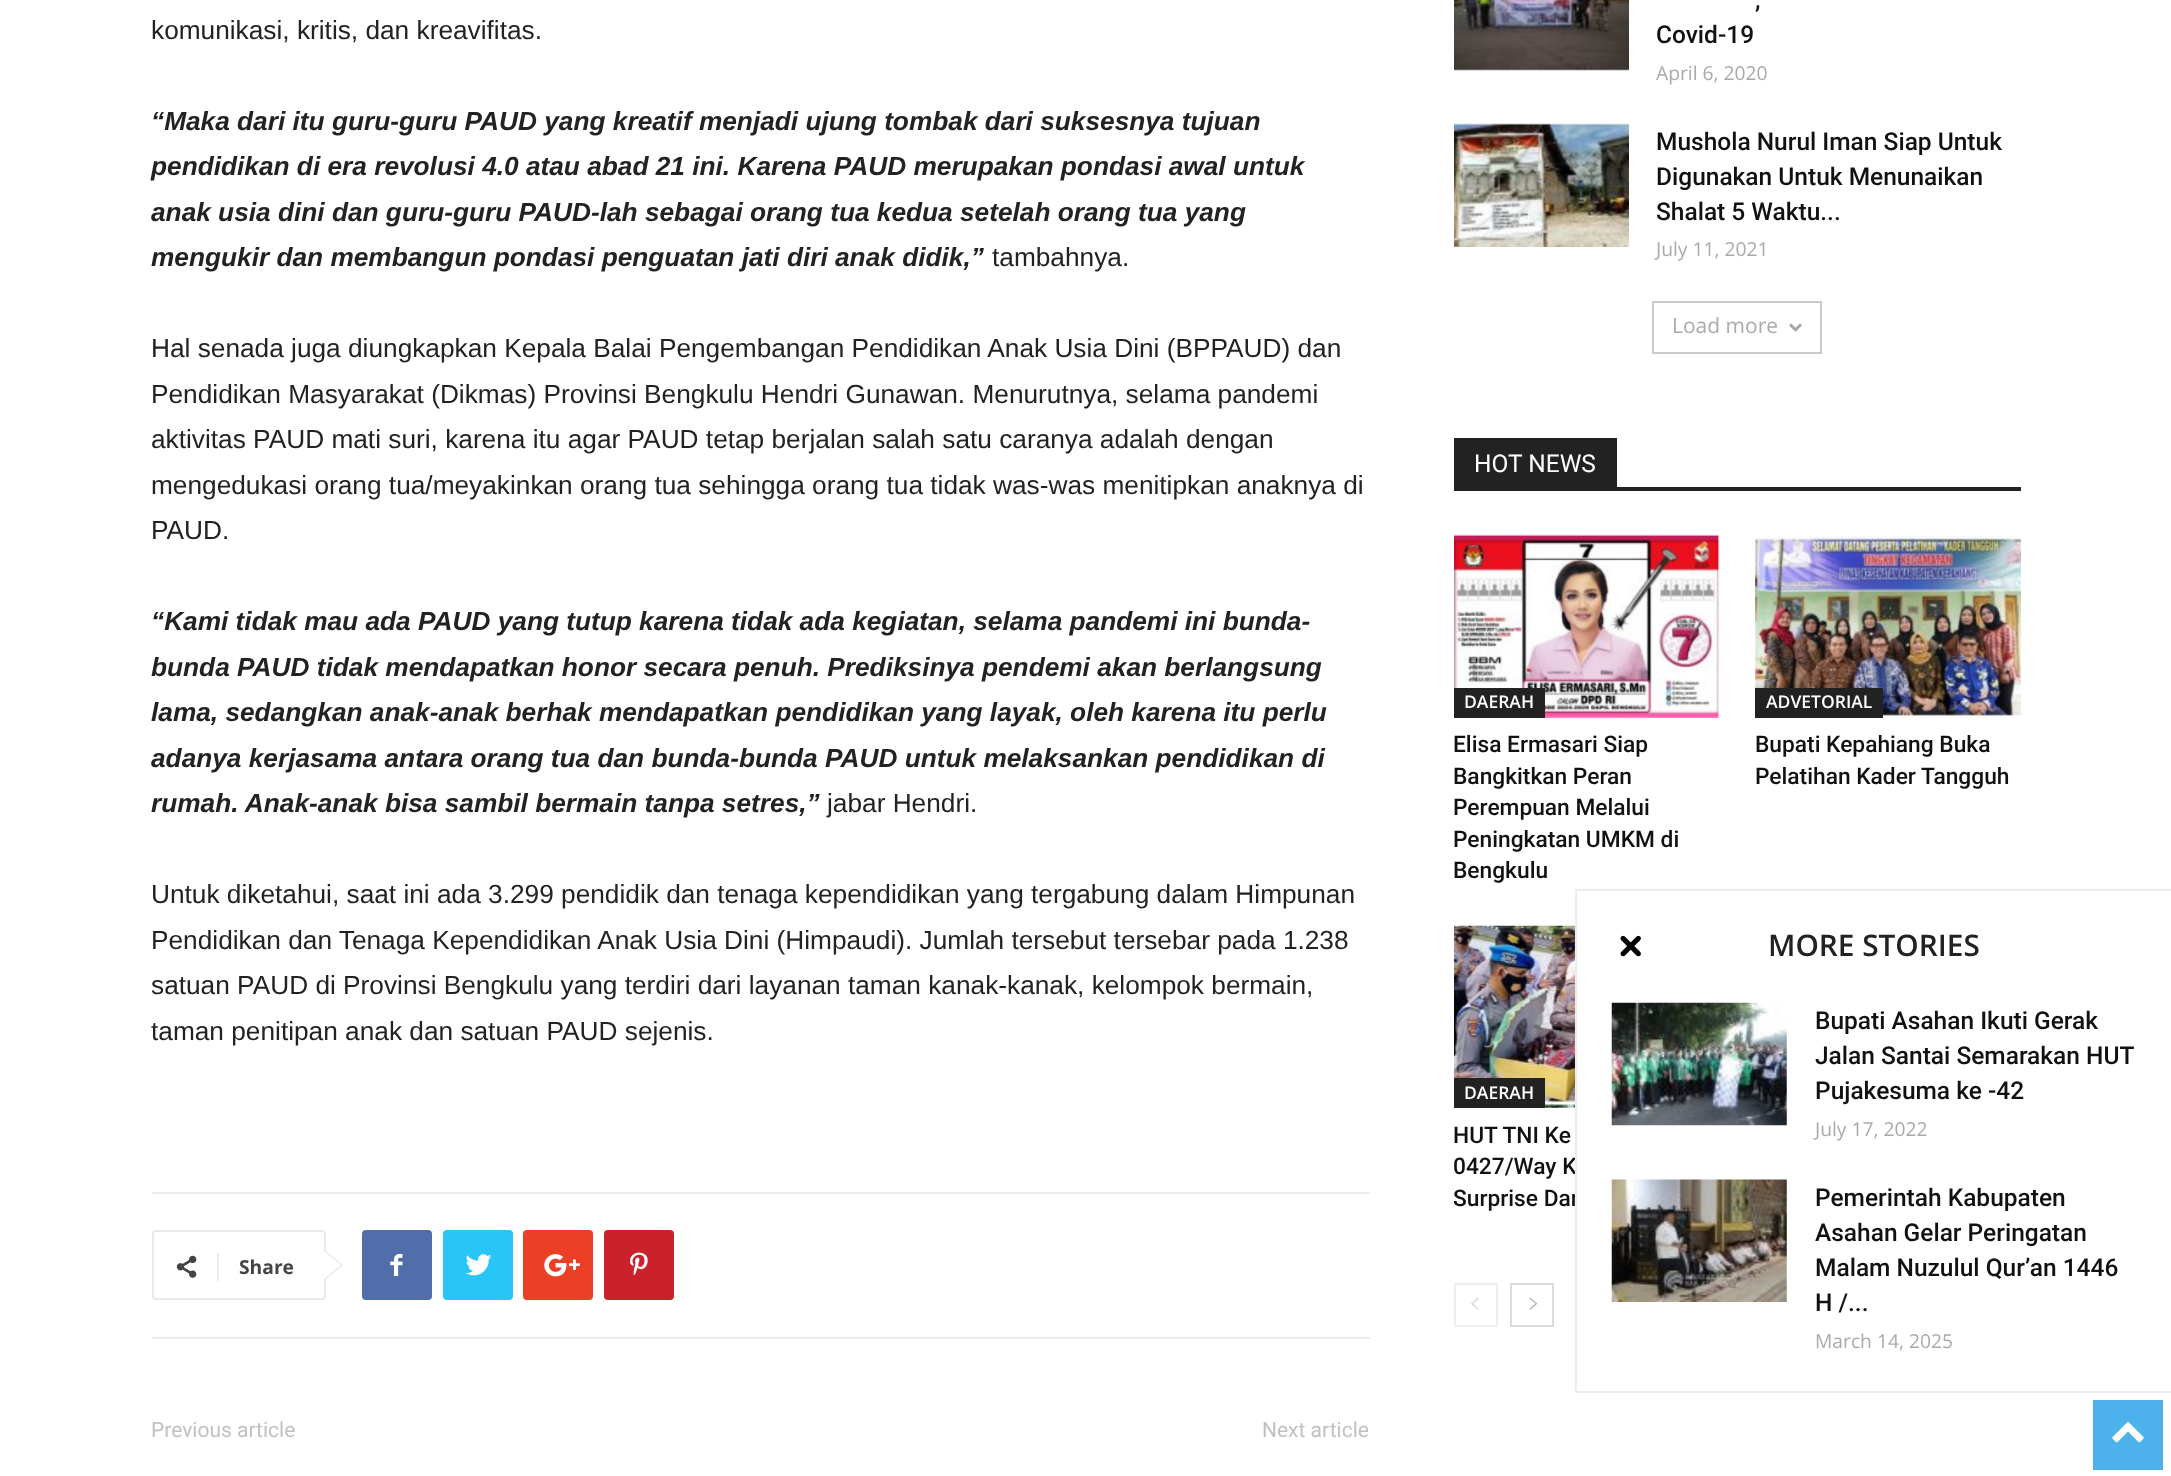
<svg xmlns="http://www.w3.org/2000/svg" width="2171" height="1476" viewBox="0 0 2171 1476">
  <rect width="100%" height="100%" fill="#fff"/>
  <path d="M152 1192h1218v2H152z" fill="#ededed"/>
  <path d="M152 1337h1218v2H152z" fill="#ededed"/>
  <rect x="153" y="1231" width="172" height="68" rx="3" fill="none" stroke="#e9e9e9" stroke-width="2"/>
  <path d="M324 1281V1249.5L343 1265Z" fill="#e9e9e9"/>
  <image x="176" y="1255" width="21" height="23" href="img/1.png"/>
  <path d="M217 1253h2v28H217z" fill="#ebebeb"/>
  <path d="M324 1279V1251L341 1265Z" fill="#fff"/>
  <rect x="362" y="1230" width="70" height="70" rx="4" fill="#516eab"/>
  <image x="390" y="1254" width="13" height="23" href="img/2.png"/>
  <rect x="443" y="1230" width="70" height="70" rx="4" fill="#29c5f6"/>
  <image x="465" y="1254" width="27" height="22" href="img/3.png"/>
  <rect x="523" y="1230" width="70" height="70" rx="4" fill="#eb4026"/>
  <image x="544" y="1254" width="36" height="23" href="img/4.png"/>
  <rect x="604" y="1230" width="70" height="70" rx="4" fill="#ca212a"/>
  <image x="630" y="1252" width="18" height="24" href="img/5.png"/>
  <image x="1454" y="0" width="175" height="71" href="img/6.png"/>
  <image x="1454" y="123" width="175" height="124" href="img/7.png"/>
  <path d="M1653 302h168v51H1653z" fill="none" stroke="#c9c9c9" stroke-width="2"/>
  <image x="1789" y="323" width="13" height="9" href="img/8.png"/>
  <path d="M1454 487h567v4H1454z" fill="#222"/>
  <path d="M1454 438h163v49H1454z" fill="#222"/>
  <image x="1454" y="534" width="266" height="184" href="img/9.png"/>
  <path d="M1454 688h91v30H1454z" fill="#222"/>
  <image x="1755" y="535" width="266" height="183" href="img/10.png"/>
  <path d="M1755 688h128v30H1755z" fill="#222"/>
  <image x="1454" y="925" width="121" height="183" href="img/11.png"/>
  <path d="M1454 1078h91v30H1454z" fill="#222"/>
  <path d="M1455 1284h42v42H1455z" fill="none" stroke="#eee" stroke-width="2"/>
  <image x="1471" y="1297" width="8" height="13" href="img/12.png"/>
  <path d="M1511 1284h42v42H1511z" fill="none" stroke="#dcdcdc" stroke-width="2"/>
  <image x="1529" y="1297" width="9" height="13" href="img/13.png"/>
  <path d="M1575 889h596v2H1575z" fill="#ededed"/>
  <path d="M1575 1391h596v2H1575z" fill="#ededed"/>
  <image x="1620" y="935" width="21" height="22" href="img/14.png"/>
  <image x="1611" y="1002" width="176" height="124" href="img/15.png"/>
  <image x="1611" y="1179" width="176" height="123" href="img/16.png"/>
  <path d="M2093 1400h70v70H2093z" fill="#4db2ec"/>
  <image x="2112" y="1422" width="32" height="21" href="img/17.png"/>
  <text x="151" y="39" font-family="Liberation Sans" font-size="26.25" fill="#222">komunikasi, kritis, dan kreavifitas.</text>
  <g font-family="Liberation Sans" font-size="26.25" font-weight="bold" font-style="italic" fill="#222">
    <text x="151" y="130">“Maka dari itu guru-guru PAUD yang kreatif menjadi ujung tombak dari suksesnya tujuan</text>
    <text x="151" y="175">pendidikan di era revolusi 4.0 atau abad 21 ini. Karena PAUD merupakan pondasi awal untuk</text>
    <text x="151" y="221">anak usia dini dan guru-guru PAUD-lah sebagai orang tua kedua setelah orang tua yang</text>
    <text x="151" y="266">mengukir dan membangun pondasi penguatan jati diri anak didik,”</text>
  </g>
  <g font-family="Liberation Sans" font-size="26.25" fill="#222">
    <text x="992" y="266">tambahnya.</text>
    <text x="151" y="357">Hal senada juga diungkapkan Kepala Balai Pengembangan Pendidikan Anak Usia Dini (BPPAUD) dan</text>
    <text x="151" y="403">Pendidikan Masyarakat (Dikmas) Provinsi Bengkulu Hendri Gunawan. Menurutnya, selama pandemi</text>
    <text x="151" y="448">aktivitas PAUD mati suri, karena itu agar PAUD tetap berjalan salah satu caranya adalah dengan</text>
    <text x="151" y="494">mengedukasi orang tua/meyakinkan orang tua sehingga orang tua tidak was-was menitipkan anaknya di</text>
    <text x="151" y="539">PAUD.</text>
  </g>
  <g font-family="Liberation Sans" font-size="26.25" font-weight="bold" font-style="italic" fill="#222">
    <text x="151" y="630">“Kami tidak mau ada PAUD yang tutup karena tidak ada kegiatan, selama pandemi ini bunda-</text>
    <text x="151" y="676">bunda PAUD tidak mendapatkan honor secara penuh. Prediksinya pendemi akan berlangsung</text>
    <text x="151" y="721">lama, sedangkan anak-anak berhak mendapatkan pendidikan yang layak, oleh karena itu perlu</text>
    <text x="151" y="767">adanya kerjasama antara orang tua dan bunda-bunda PAUD untuk melaksankan pendidikan di</text>
    <text x="151" y="812">rumah. Anak-anak bisa sambil bermain tanpa setres,”</text>
  </g>
  <g font-family="Liberation Sans" font-size="26.25" fill="#222">
    <text x="827" y="812">jabar Hendri.</text>
    <text x="151" y="903">Untuk diketahui, saat ini ada 3.299 pendidik dan tenaga kependidikan yang tergabung dalam Himpunan</text>
    <text x="151" y="949">Pendidikan dan Tenaga Kependidikan Anak Usia Dini (Himpaudi). Jumlah tersebut tersebar pada 1.238</text>
    <text x="151" y="994">satuan PAUD di Provinsi Bengkulu yang terdiri dari layanan taman kanak-kanak, kelompok bermain,</text>
    <text x="151" y="1040">taman penitipan anak dan satuan PAUD sejenis.</text>
  </g>
  <text x="239" y="1274" font-family="Open Sans" font-size="19.25" font-weight="bold" fill="#444">Share</text>
  <g font-family="Roboto" font-size="21" fill="#c1c1c1">
    <text x="151" y="1437">Previous article</text>
    <text x="1262" y="1437">Next article</text>
  </g>
  <g font-family="Roboto" font-size="24.5" font-weight="500" fill="#111">
    <text x="1755" y="8">,</text>
    <text x="1656" y="43">Covid-19</text>
  </g>
  <text x="1656" y="80" font-family="Open Sans" font-size="19.25" fill="#aaa">April 6, 2020</text>
  <g font-family="Roboto" font-size="24.5" font-weight="500" fill="#111">
    <text x="1656" y="150">Mushola Nurul Iman Siap Untuk</text>
    <text x="1656" y="185">Digunakan Untuk Menunaikan</text>
    <text x="1656" y="220">Shalat 5 Waktu...</text>
  </g>
  <text x="1656" y="256" font-family="Open Sans" font-size="19.25" fill="#aaa">July 11, 2021</text>
  <text x="1672" y="333" font-family="Open Sans" font-size="21" fill="#aaa">Load more</text>
  <text x="1474" y="472" font-family="Roboto" font-size="24.5" fill="#fff">HOT NEWS</text>
  <text x="1464" y="708" font-family="Open Sans" font-size="17.5" font-weight="600" fill="#fff">DAERAH</text>
  <g font-family="Roboto" font-size="22.75" font-weight="500" fill="#111">
    <text x="1453" y="752">Elisa Ermasari Siap</text>
    <text x="1453" y="784">Bangkitkan Peran</text>
    <text x="1453" y="815">Perempuan Melalui</text>
    <text x="1453" y="847">Peningkatan UMKM di</text>
    <text x="1453" y="878">Bengkulu</text>
  </g>
  <text x="1766" y="708" font-family="Open Sans" font-size="17.5" font-weight="600" fill="#fff">ADVETORIAL</text>
  <g font-family="Roboto" font-size="22.75" font-weight="500" fill="#111">
    <text x="1755" y="752">Bupati Kepahiang Buka</text>
    <text x="1755" y="784">Pelatihan Kader Tangguh</text>
  </g>
  <text x="1464" y="1099" font-family="Open Sans" font-size="17.5" font-weight="600" fill="#fff">DAERAH</text>
  <g font-family="Roboto" font-size="22.75" font-weight="500" fill="#111">
    <text x="1453" y="1143">HUT TNI Ke</text>
    <text x="1453" y="1174">0427/Way K</text>
    <text x="1453" y="1206">Surprise Dar</text>
  </g>
  <path d="M1577 1193h2v4H1577z" fill="#fff"/>
  <path d="M1575 889h2v504H1575z" fill="#ededed"/>
  <text x="1768" y="956" font-family="Open Sans" font-size="29.75" font-weight="600" fill="#222">MORE STORIES</text>
  <g font-family="Roboto" font-size="24.5" font-weight="500" fill="#111">
    <text x="1815" y="1029">Bupati Asahan Ikuti Gerak</text>
    <text x="1815" y="1064">Jalan Santai Semarakan HUT</text>
    <text x="1815" y="1099">Pujakesuma ke -42</text>
  </g>
  <text x="1815" y="1136" font-family="Open Sans" font-size="19.25" fill="#aaa">July 17, 2022</text>
  <g font-family="Roboto" font-size="24.5" font-weight="500" fill="#111">
    <text x="1815" y="1206">Pemerintah Kabupaten</text>
    <text x="1815" y="1241">Asahan Gelar Peringatan</text>
    <text x="1815" y="1276">Malam Nuzulul Qur’an 1446</text>
    <text x="1815" y="1311">H /...</text>
  </g>
  <text x="1815" y="1348" font-family="Open Sans" font-size="19.25" fill="#aaa">March 14, 2025</text>
</svg>
